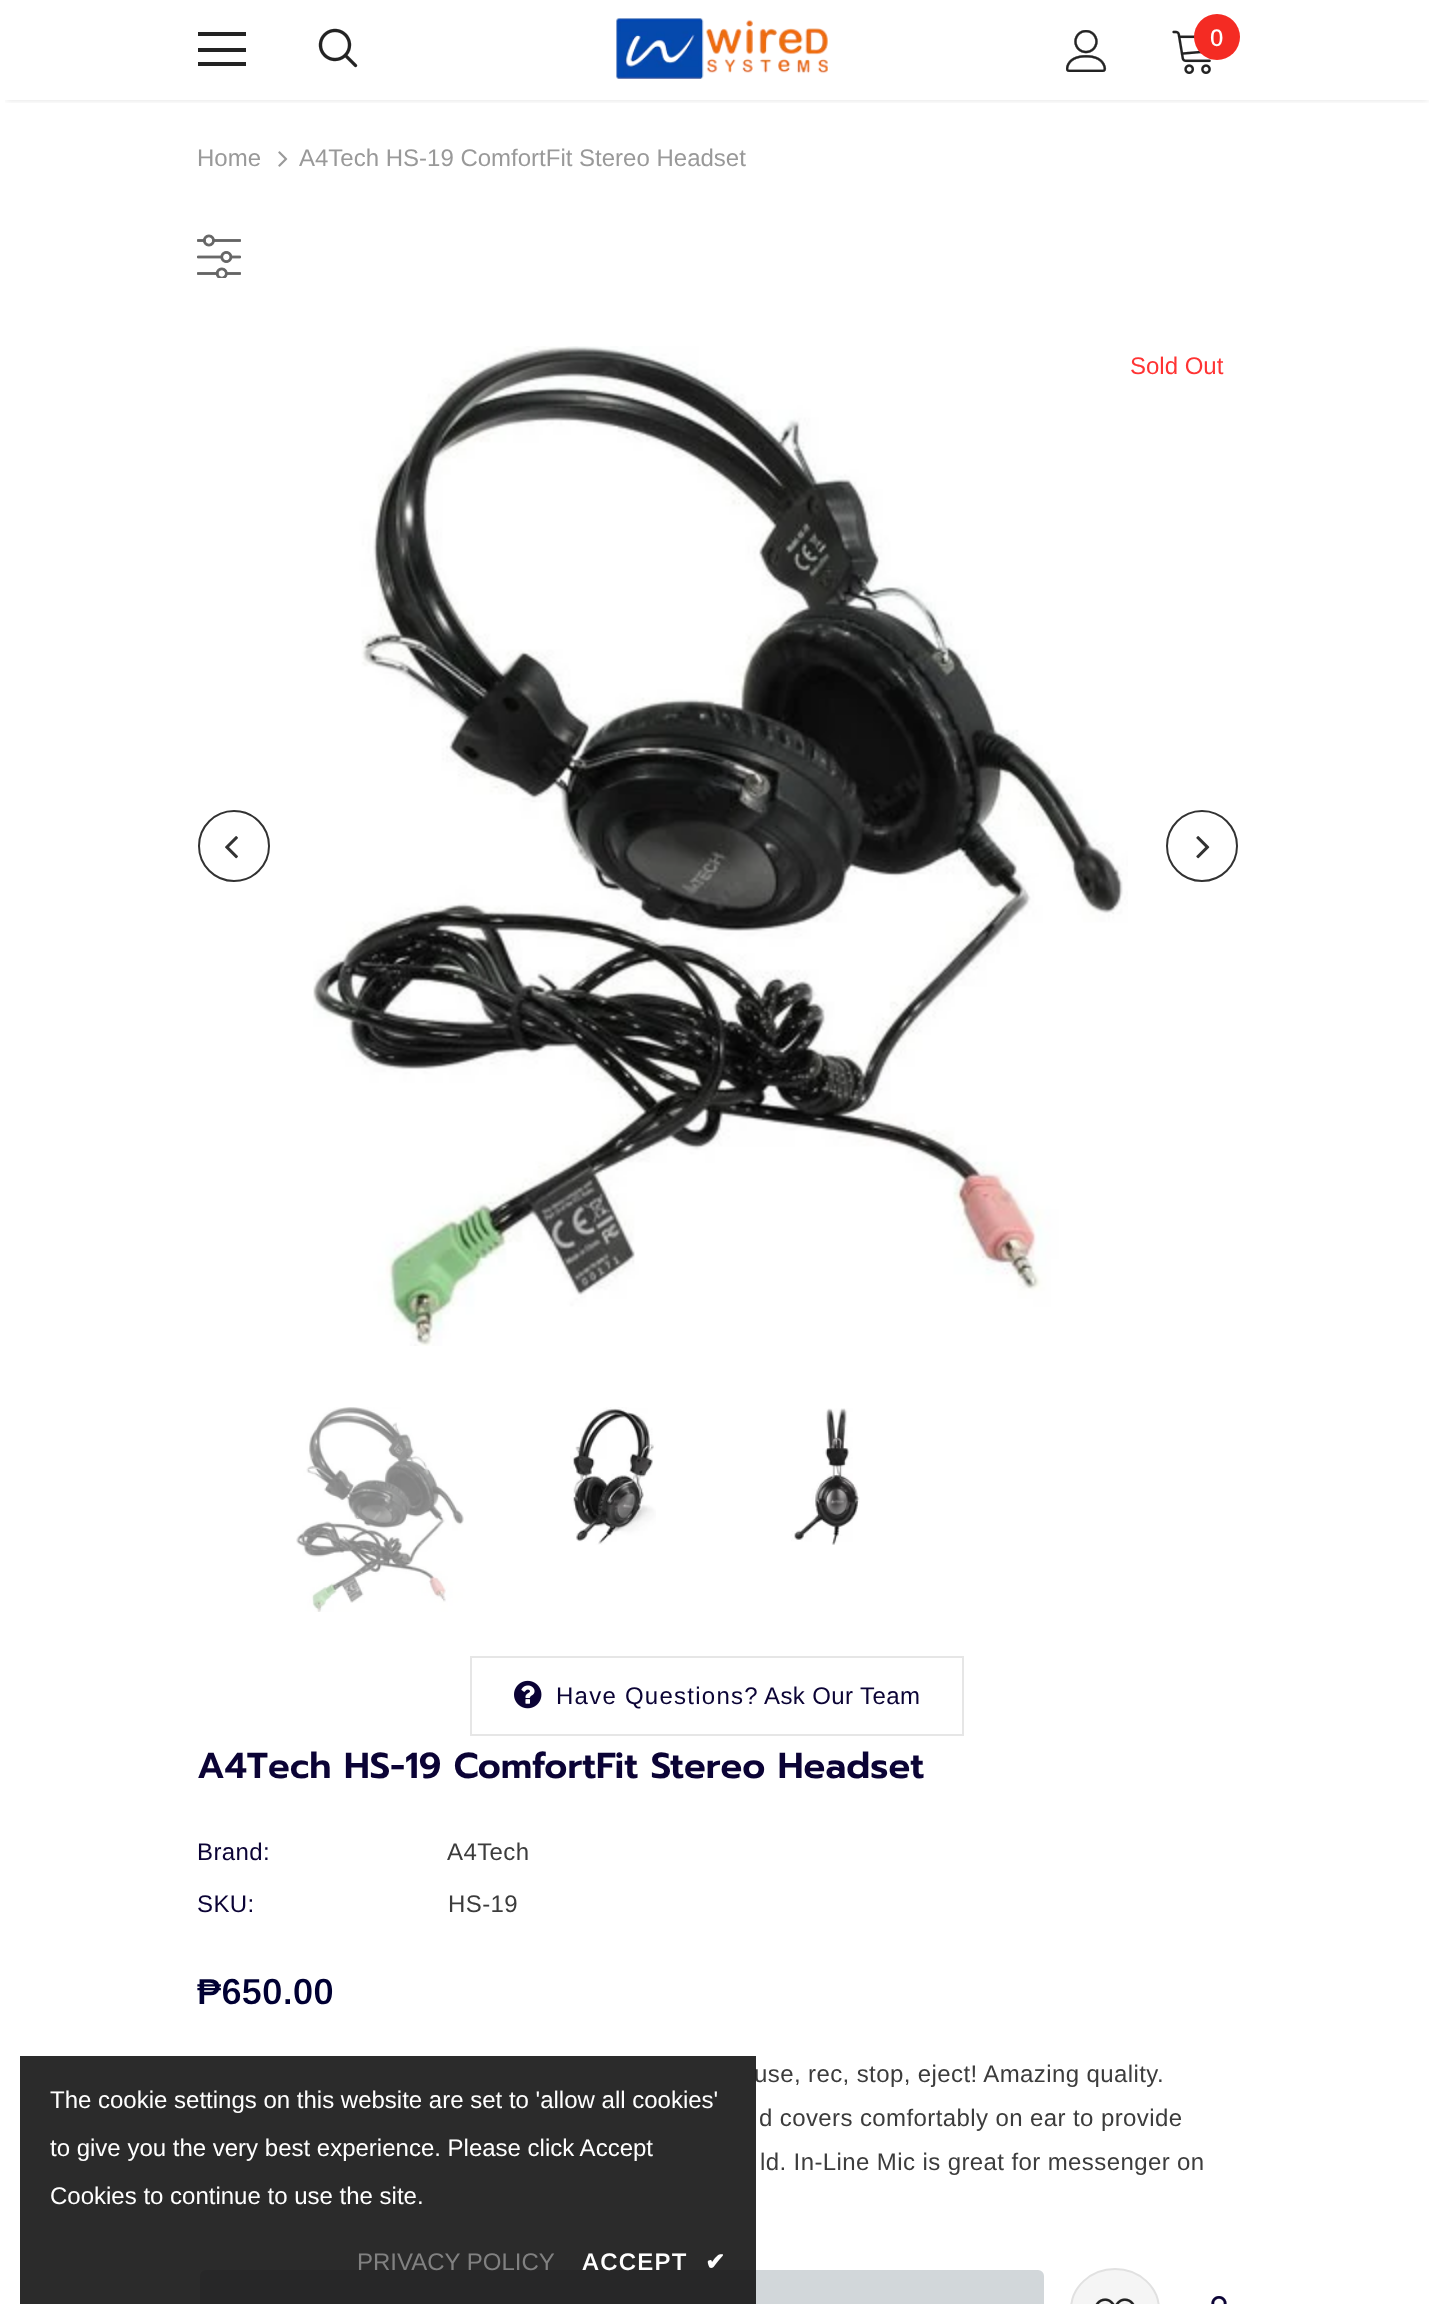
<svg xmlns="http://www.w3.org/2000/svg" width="1433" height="2304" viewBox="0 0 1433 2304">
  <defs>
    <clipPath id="clip1"><path d="M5 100h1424v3H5z"/></clipPath>
  </defs>
  <rect width="100%" height="100%" fill="#fff"/>
  <g clip-path="url(#clip1)">
    <path d="M6 12h1422v88H6z" fill="#0000001f" filter="blur(3px)"/>
  </g>
  <path d="M198 32h48v4H198z" fill="#232323"/>
  <path d="M198 48h48v4H198z" fill="#232323"/>
  <path d="M198 62h48v4H198z" fill="#232323"/>
  <image x="318" y="28" width="40" height="40" href="img/1.png"/>
  <image x="616" y="18" width="212" height="61" href="img/2.png"/>
  <image x="1066" y="30" width="41" height="42" href="img/3.png"/>
  <image x="1172" y="30" width="39" height="44" href="img/4.png"/>
  <circle cx="1217" cy="37" r="23" fill="#f42b23"/>
  <image x="278" y="151" width="10" height="16" href="img/5.png"/>
  <image x="197" y="234" width="44" height="44" href="img/6.png"/>
  <circle cx="234" cy="846" r="35" fill="none" stroke="#323232" stroke-width="2"/>
  <image x="225" y="836" width="13" height="23" href="img/7.png"/>
  <image x="313" y="346" width="815" height="1000" href="img/8.png"/>
  <circle cx="1202" cy="846" r="35" fill="none" stroke="#323232" stroke-width="2"/>
  <image x="1196" y="836" width="14" height="23" href="img/9.png"/>
  <image x="296" y="1407" width="168" height="205" href="img/10.png"/>
  <image x="570" y="1407" width="86" height="138" href="img/11.png"/>
  <image x="791" y="1408" width="69" height="137" href="img/12.png"/>
  <path d="M471 1657h492v78H471z" fill="none" stroke="#e6e6e6" stroke-width="2"/>
  <image x="514" y="1680" width="28" height="29" href="img/13.png"/>
  <rect x="199" y="2269" width="846" height="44" rx="7" fill="#d2d7da" stroke="#fff" stroke-width="2"/>
  <rect x="1071" y="2269" width="88" height="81" rx="44" fill="#f5f5f5" stroke="#e1e1e1" stroke-width="2"/>
  <image x="1095" y="2298" width="40" height="6" href="img/14.png"/>
  <image x="1211" y="2296" width="16" height="8" href="img/15.png"/>
  <text x="1210" y="46" font-family="Arimo" font-size="24" font-weight="500" fill="#fff">0</text>
  <g font-family="Arimo" font-size="24" fill="#999">
    <text x="197" y="166">Home</text>
    <text x="299" y="166">A4Tech HS-19 ComfortFit Stereo Headset</text>
  </g>
  <text x="1130" y="374" font-family="Arimo" font-size="24" fill="#f33">Sold Out</text>
  <text x="556" y="1704" font-family="Arimo" font-size="24" letter-spacing="1.25" fill="#0b0335">Have Questions?</text>
  <text x="764" y="1704" font-family="Arimo" font-size="24" letter-spacing="0.4" fill="#0b0335">Ask Our Team</text>
  <text x="197" y="1778" font-family="Prompt" font-size="36" font-weight="600" fill="#0b0335">A4Tech HS-19 ComfortFit Stereo Headset</text>
  <text x="197" y="1860" font-family="Arimo" font-size="24" letter-spacing="0.4" fill="#0b0335">Brand:</text>
  <text x="447" y="1860" font-family="Arimo" font-size="24" letter-spacing="0.4" fill="#3c3c3c">A4Tech</text>
  <text x="197" y="1912" font-family="Arimo" font-size="24" letter-spacing="0.4" fill="#0b0335">SKU:</text>
  <text x="448" y="1912" font-family="Arimo" font-size="24" letter-spacing="0.4" fill="#3c3c3c">HS-19</text>
  <text x="197" y="2004" font-family="Arimo" font-size="36" font-weight="600" letter-spacing="0.4" fill="#003">₱650.00</text>
  <g font-family="Arimo" font-size="24" letter-spacing="0.4" fill="#3c3c3c">
    <text x="754" y="2082">use, rec, stop, eject! Amazing quality.</text>
    <text x="759" y="2126">d covers comfortably on ear to provide</text>
    <text x="760" y="2170">ld. In-Line Mic is great for messenger on</text>
  </g>
  <path d="M20 2056h736v248H20z" fill="#141414e6"/>
  <g font-family="Arimo" font-size="24" fill="#fff">
    <text x="50" y="2108">The cookie settings on this website are set to 'allow all cookies'</text>
    <text x="50" y="2156">to give you the very best experience. Please click Accept</text>
    <text x="50" y="2204">Cookies to continue to use the site.</text>
  </g>
  <text x="357" y="2270" font-family="Arimo" font-size="24" fill="#818181">PRIVACY POLICY</text>
  <text x="582" y="2270" font-family="Arimo" font-size="24" font-weight="600" letter-spacing="1.25" fill="#fff">ACCEPT</text>
  <text x="705" y="2270" font-family="DejaVu Sans" font-size="24" font-weight="bold" letter-spacing="1.25" fill="#fff">✔</text>
</svg>
